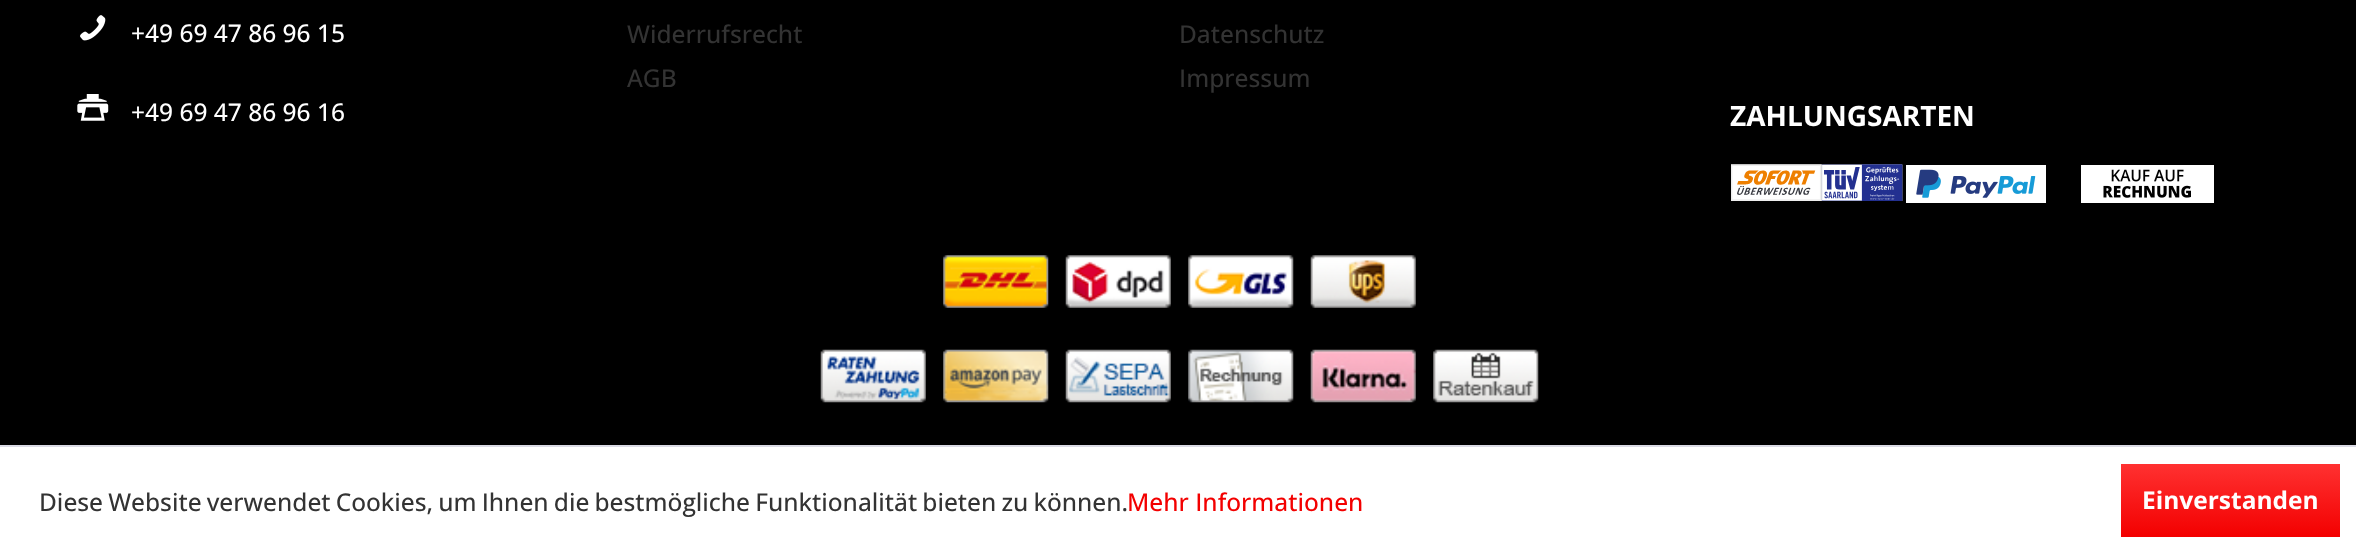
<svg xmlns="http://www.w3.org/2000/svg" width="2356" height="556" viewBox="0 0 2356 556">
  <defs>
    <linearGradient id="g1" gradientUnits="userSpaceOnUse" x1="2230" y1="464" x2="2230" y2="537"><stop offset="0" stop-color="#ff3131"/><stop offset="1" stop-color="#f30000"/></linearGradient>
  </defs>
  <rect width="100%" height="100%" fill="#fff"/>
  <path d="M0 0h2356v445H0z" fill="#000"/>
  <image x="80" y="15" width="26" height="26" href="img/1.png"/>
  <image x="77" y="94" width="32" height="27" href="img/2.png"/>
  <image x="1731" y="164" width="172" height="37" href="img/3.png"/>
  <image x="1906" y="165" width="140" height="38" href="img/4.png"/>
  <image x="2081" y="165" width="133" height="38" href="img/5.png"/>
  <image x="943" y="255" width="106" height="53" href="img/6.png"/>
  <image x="1065" y="255" width="106" height="53" href="img/7.png"/>
  <image x="1188" y="255" width="106" height="53" href="img/8.png"/>
  <image x="1310" y="255" width="106" height="53" href="img/9.png"/>
  <image x="820" y="349" width="106" height="54" href="img/10.png"/>
  <image x="943" y="349" width="106" height="54" href="img/11.png"/>
  <image x="1065" y="349" width="106" height="54" href="img/12.png"/>
  <image x="1188" y="349" width="106" height="54" href="img/13.png"/>
  <image x="1310" y="349" width="106" height="54" href="img/14.png"/>
  <image x="1433" y="349" width="106" height="54" href="img/15.png"/>
  <path d="M0 445h2356v2H0z" fill="#dadae5"/>
  <path d="M2121 464h219v73H2121z" fill="url(#g1)"/>
  <g font-family="Open Sans" font-size="24.5" font-weight="500" fill="#fff">
    <text x="131" y="42">+49 69 47 86 96 15</text>
    <text x="131" y="121">+49 69 47 86 96 16</text>
  </g>
  <g font-family="Open Sans" font-size="24.5" font-weight="500" fill="#333">
    <text x="627" y="43">Widerrufsrecht</text>
    <text x="627" y="87">AGB</text>
    <text x="1179" y="43">Datenschutz</text>
    <text x="1179" y="87">Impressum</text>
  </g>
  <text x="1730" y="126" font-family="Open Sans" font-size="28" font-weight="bold" fill="#fff">ZAHLUNGSARTEN</text>
  <text x="39" y="511" word-spacing="-1.25" font-family="Open Sans" font-size="24.5" font-weight="500" fill="#333">Diese Website verwendet Cookies, um Ihnen die bestmögliche Funktionalität bieten zu können.</text>
  <text x="1127" y="511" font-family="Open Sans" font-size="24.5" font-weight="500" fill="#f30000">Mehr Informationen</text>
  <text x="2142" y="509" font-family="Open Sans" font-size="24.5" font-weight="bold" fill="#fff">Einverstanden</text>
</svg>
